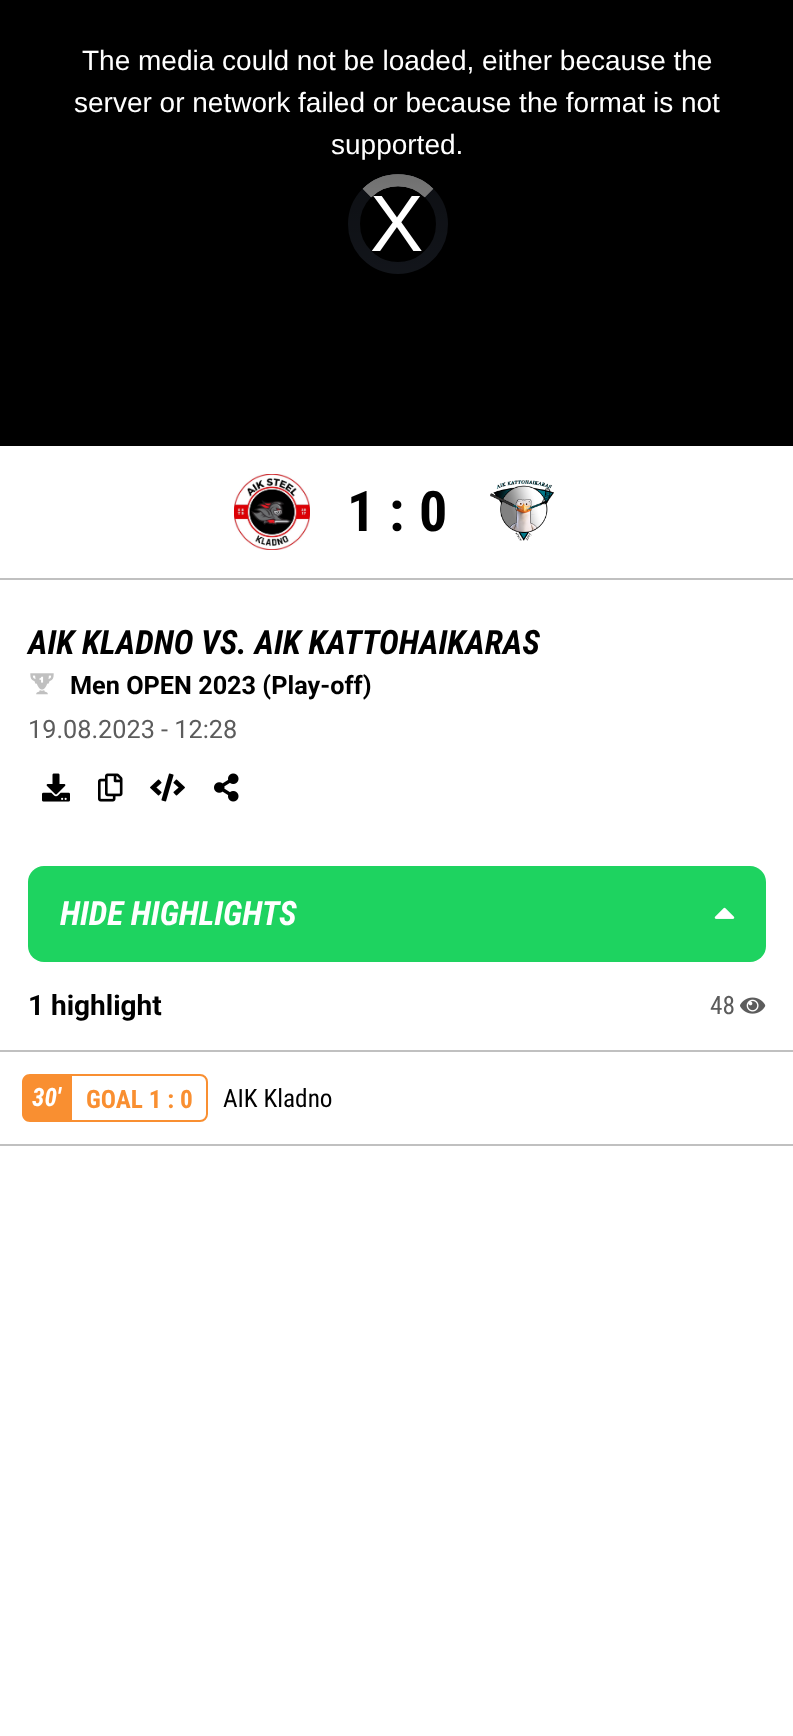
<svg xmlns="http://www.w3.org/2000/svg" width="793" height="1736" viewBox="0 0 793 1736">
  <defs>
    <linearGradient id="g1" gradientUnits="userSpaceOnUse" x1="397" y1="0" x2="397" y2="446"><stop offset="0" stop-color="#000" stop-opacity="0.8"/><stop offset="1" stop-color="#000" stop-opacity="0"/></linearGradient>
  </defs>
  <rect width="100%" height="100%" fill="#fff"/>
  <path d="M0 1144h793v2H0z" fill="#c0c0c0"/>
  <path d="M0 0h793v446H0z" fill="#000"/>
  <circle cx="398" cy="224" r="44" fill="none" stroke="#1a1e26" stroke-width="12"/>
  <path d="M367 193C384 176 412 176 429 193" fill="none" stroke="#d9d9d9" stroke-width="12"/>
  <path d="M367 193C384 176 412 176 429 193" fill="none" stroke="#d9d9d9" stroke-width="12"/>
  <path d="M348 174h100v100H348z" fill="url(#g1)"/>
  <image x="234" y="474" width="76" height="76" href="img/1.png"/>
  <image x="490" y="480" width="64" height="61" href="img/2.png"/>
  <path d="M0 578h793v2H0z" fill="#c0c0c0"/>
  <image x="30" y="673" width="24" height="22" href="img/3.png"/>
  <image x="42" y="773" width="28" height="29" href="img/4.png"/>
  <image x="98" y="773" width="25" height="29" href="img/5.png"/>
  <image x="150" y="773" width="35" height="29" href="img/6.png"/>
  <image x="214" y="773" width="25" height="29" href="img/7.png"/>
  <rect x="28" y="866" width="738" height="96" rx="16" fill="#1ed360"/>
  <image x="714" y="907" width="21" height="12" href="img/8.png"/>
  <image x="740" y="997" width="26" height="17" href="img/9.png"/>
  <path d="M0 1050h793v2H0z" fill="#c0c0c0"/>
  <path d="M30 1074H70V1122H30C25.5 1122 22 1118.5 22 1114V1082C22 1077.5 25.5 1074 30 1074Z" fill="#f98f31"/>
  <path d="M71 1075H200C204 1075 207 1078 207 1082V1114C207 1118 204 1121 200 1121H71Z" fill="none" stroke="#f98f31" stroke-width="2"/>
  <g font-family="Liberation Sans" font-size="28" fill="#fff">
    <text x="82" y="70">The media could not be loaded, either because the</text>
    <text x="74" y="112">server or network failed or because the format is not</text>
    <text x="331" y="154">supported.</text>
  </g>
  <text x="370" y="251" font-family="Liberation Sans" font-size="80" fill="#fff">X</text>
  <g font-family="Roboto Condensed" font-size="56" font-weight="bold" fill="#000">
    <text x="347" y="531">1</text>
    <text x="389" y="531">:</text>
    <text x="419" y="531">0</text>
  </g>
  <text x="28" y="654" font-family="Roboto Condensed" font-size="33.6" font-weight="bold" font-style="italic" fill="#000">AIK KLADNO VS. AIK KATTOHAIKARAS</text>
  <text x="70" y="694" font-family="Roboto" font-size="25.25" font-weight="bold" fill="#000">Men OPEN 2023 (Play-off)</text>
  <text x="28" y="738" font-family="Roboto" font-size="25.25" fill="#5c5c5c">19.08.2023 - 12:28</text>
  <text x="60" y="925" font-family="Roboto Condensed" font-size="33.6" font-weight="bold" font-style="italic" fill="#fff">HIDE HIGHLIGHTS</text>
  <text x="28" y="1015" font-family="Roboto" font-size="28" font-weight="bold" fill="#000">1 highlight</text>
  <text x="710" y="1014" font-family="Roboto Condensed" font-size="25.25" fill="#5c5c5c">48</text>
  <text x="32" y="1106" font-family="Roboto Condensed" font-size="25.25" font-weight="bold" font-style="italic" fill="#fff">30'</text>
  <text x="86" y="1108" font-family="Roboto Condensed" font-size="25.25" font-weight="bold" fill="#f98f31">GOAL 1 : 0</text>
  <text x="223" y="1107" font-family="Roboto Condensed" font-size="25.25" fill="#000">AIK Kladno</text>
</svg>
